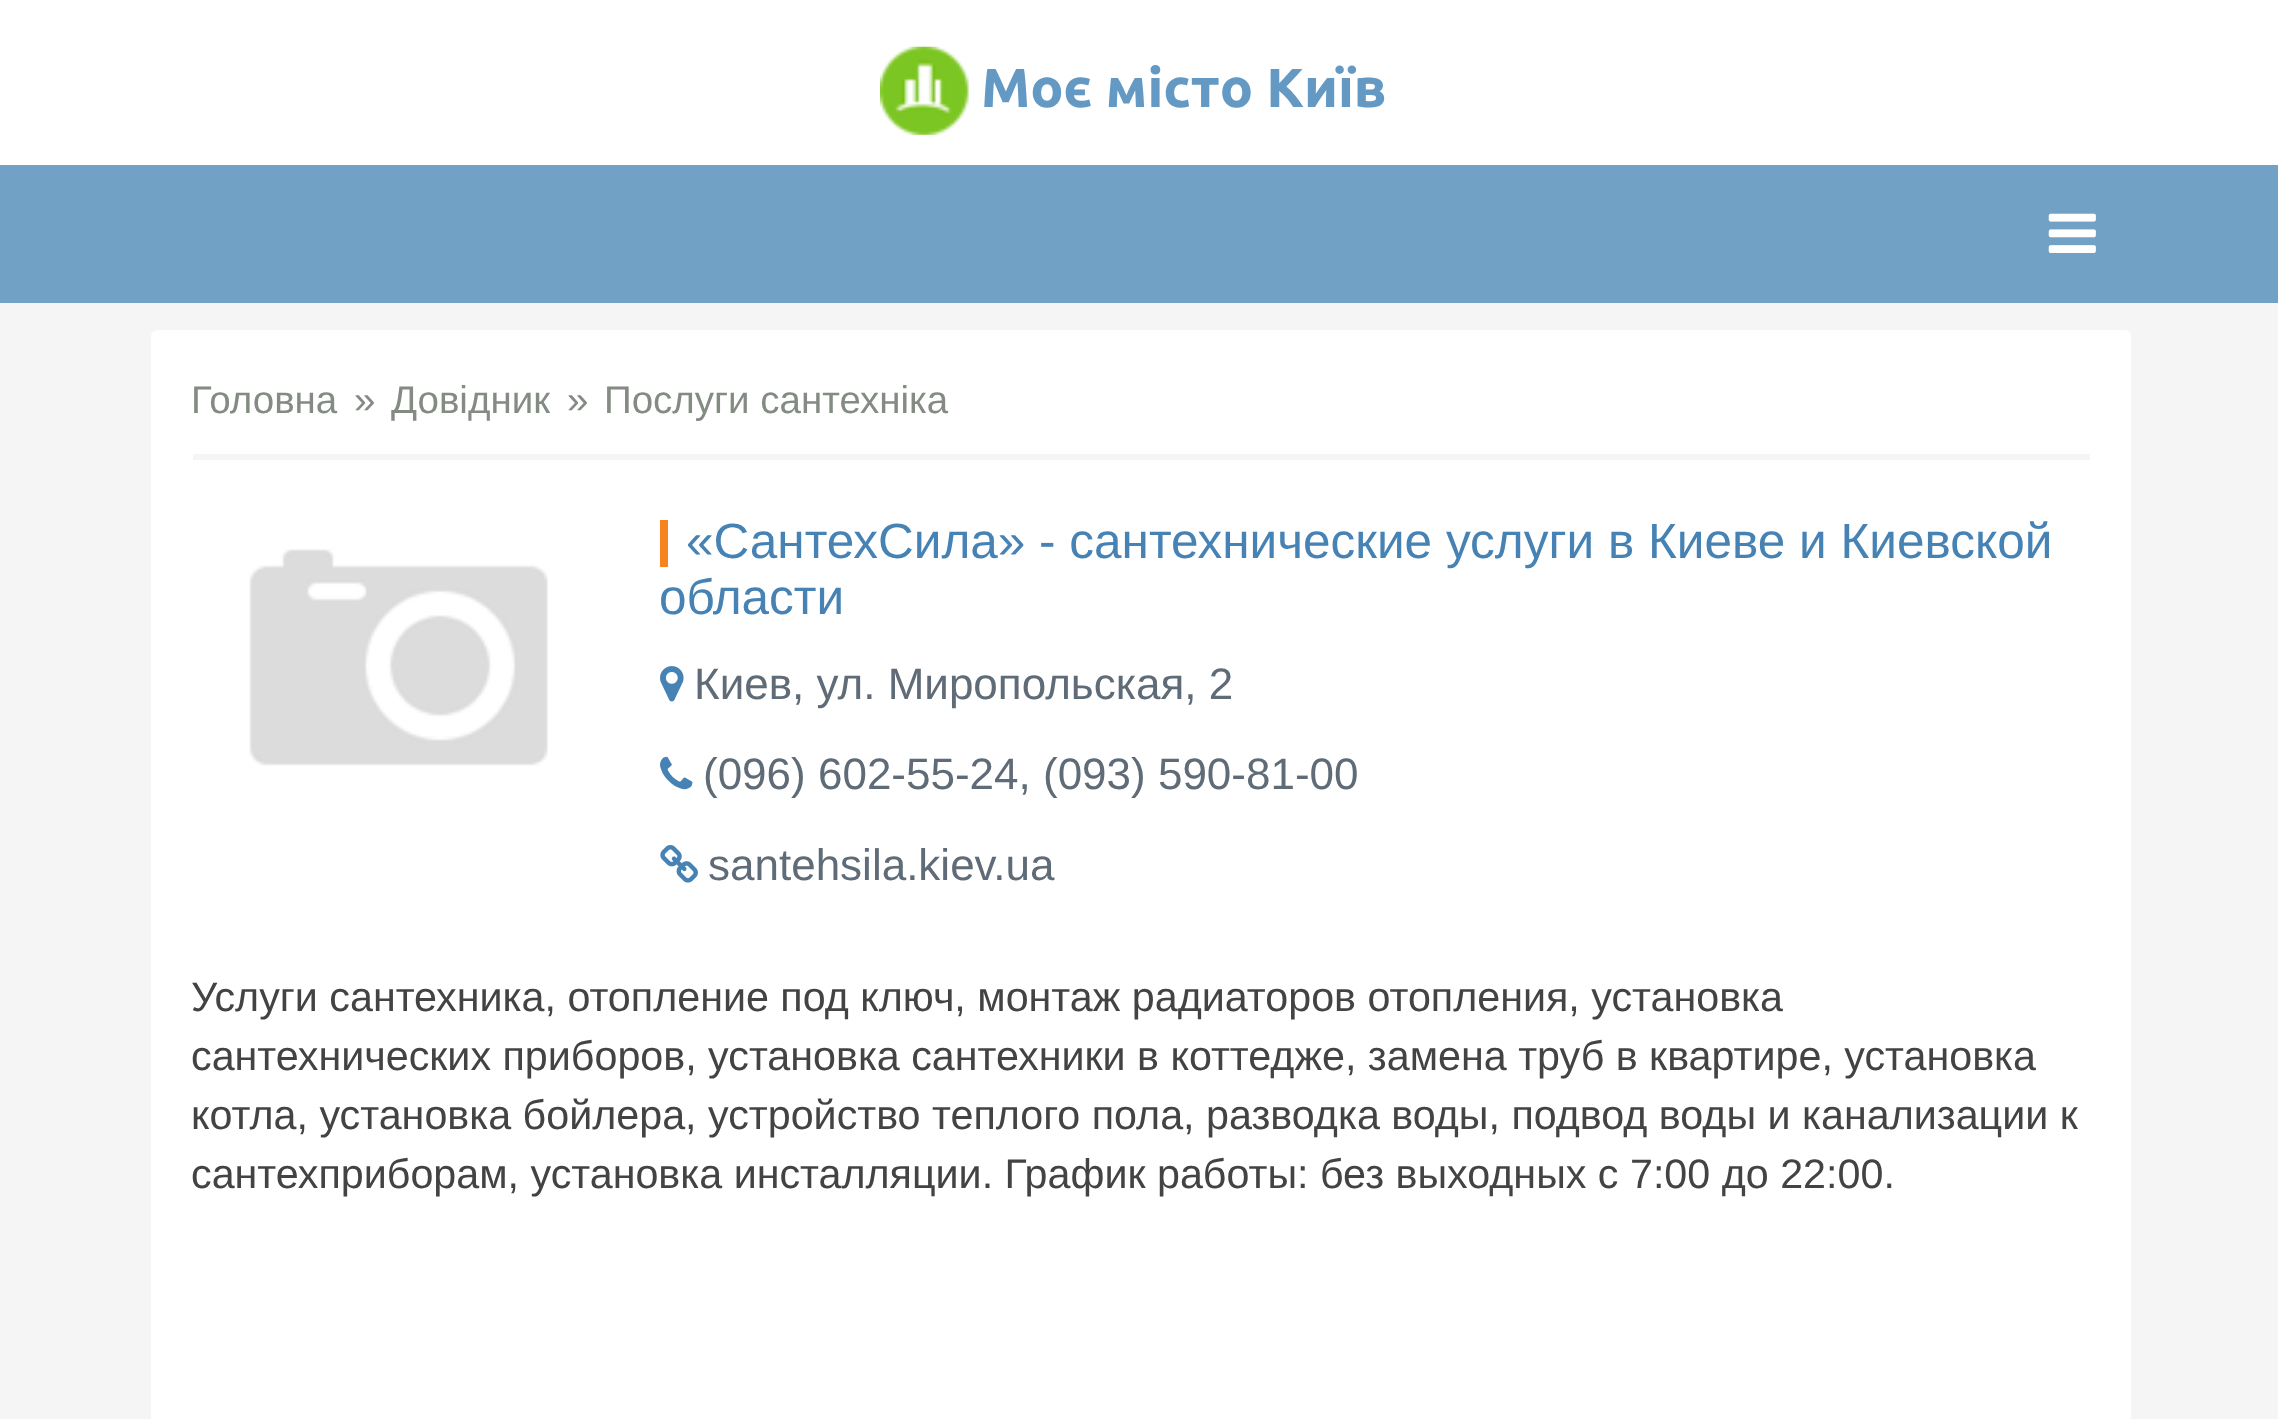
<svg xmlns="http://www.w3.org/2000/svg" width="2278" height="1419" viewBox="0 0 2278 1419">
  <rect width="100%" height="100%" fill="#f5f5f5"/>
  <path d="M0 0h2278v165H0z" fill="#fff"/>
  <image x="880" y="46" width="89" height="89" href="img/1.png"/>
  <path d="M0 165h2278v138H0z" fill="#72a1c6"/>
  <image x="2048" y="213" width="48" height="40" href="img/2.png"/>
  <rect x="151" y="330" width="1980" height="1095" rx="6" fill="#fff"/>
  <path d="M193 454h1897v6H193z" fill="#f5f5f5"/>
  <image x="249" y="549" width="299" height="217" href="img/3.png"/>
  <path d="M660 520h8v47H660z" fill="#f78320"/>
  <image x="660" y="666" width="24" height="36" href="img/4.png"/>
  <image x="660" y="756" width="33" height="34" href="img/5.png"/>
  <image x="660" y="845" width="38" height="38" href="img/6.png"/>
  <text x="981" y="107" font-family="Ubuntu" font-size="55" font-weight="bold" fill="#6399c3">Моє місто Київ</text>
  <g font-family="Liberation Sans" font-size="38.5" fill="#838b83">
    <text x="191" y="413">Головна</text>
    <text x="354" y="413">»</text>
    <text x="391" y="413">Довідник</text>
    <text x="567" y="413">»</text>
    <text x="604" y="413">Послуги сантехніка</text>
  </g>
  <g font-family="Liberation Sans" font-size="49.5" fill="#4682b4">
    <text x="686" y="558">«СантехСила» - сантехнические услуги в Киеве и Киевской</text>
    <text x="659" y="614">области</text>
  </g>
  <g font-family="Liberation Sans" font-size="44" fill="#5f6b77">
    <text x="694" y="699">Киев, ул. Миропольская, 2</text>
    <text x="703" y="789">(096) 602-55-24, (093) 590-81-00</text>
    <text x="708" y="880">santehsila.kiev.ua</text>
  </g>
  <g font-family="Liberation Sans" font-size="41.25" fill="#434343">
    <text x="191" y="1011">Услуги сантехника, отопление под ключ, монтаж радиаторов отопления, установка</text>
    <text x="191" y="1070">сантехнических приборов, установка сантехники в коттедже, замена труб в квартире, установка</text>
    <text x="191" y="1129">котла, установка бойлера, устройство теплого пола, разводка воды, подвод воды и канализации к</text>
    <text x="191" y="1188">сантехприборам, установка инсталляции. График работы: без выходных с 7:00 до 22:00.</text>
  </g>
</svg>
